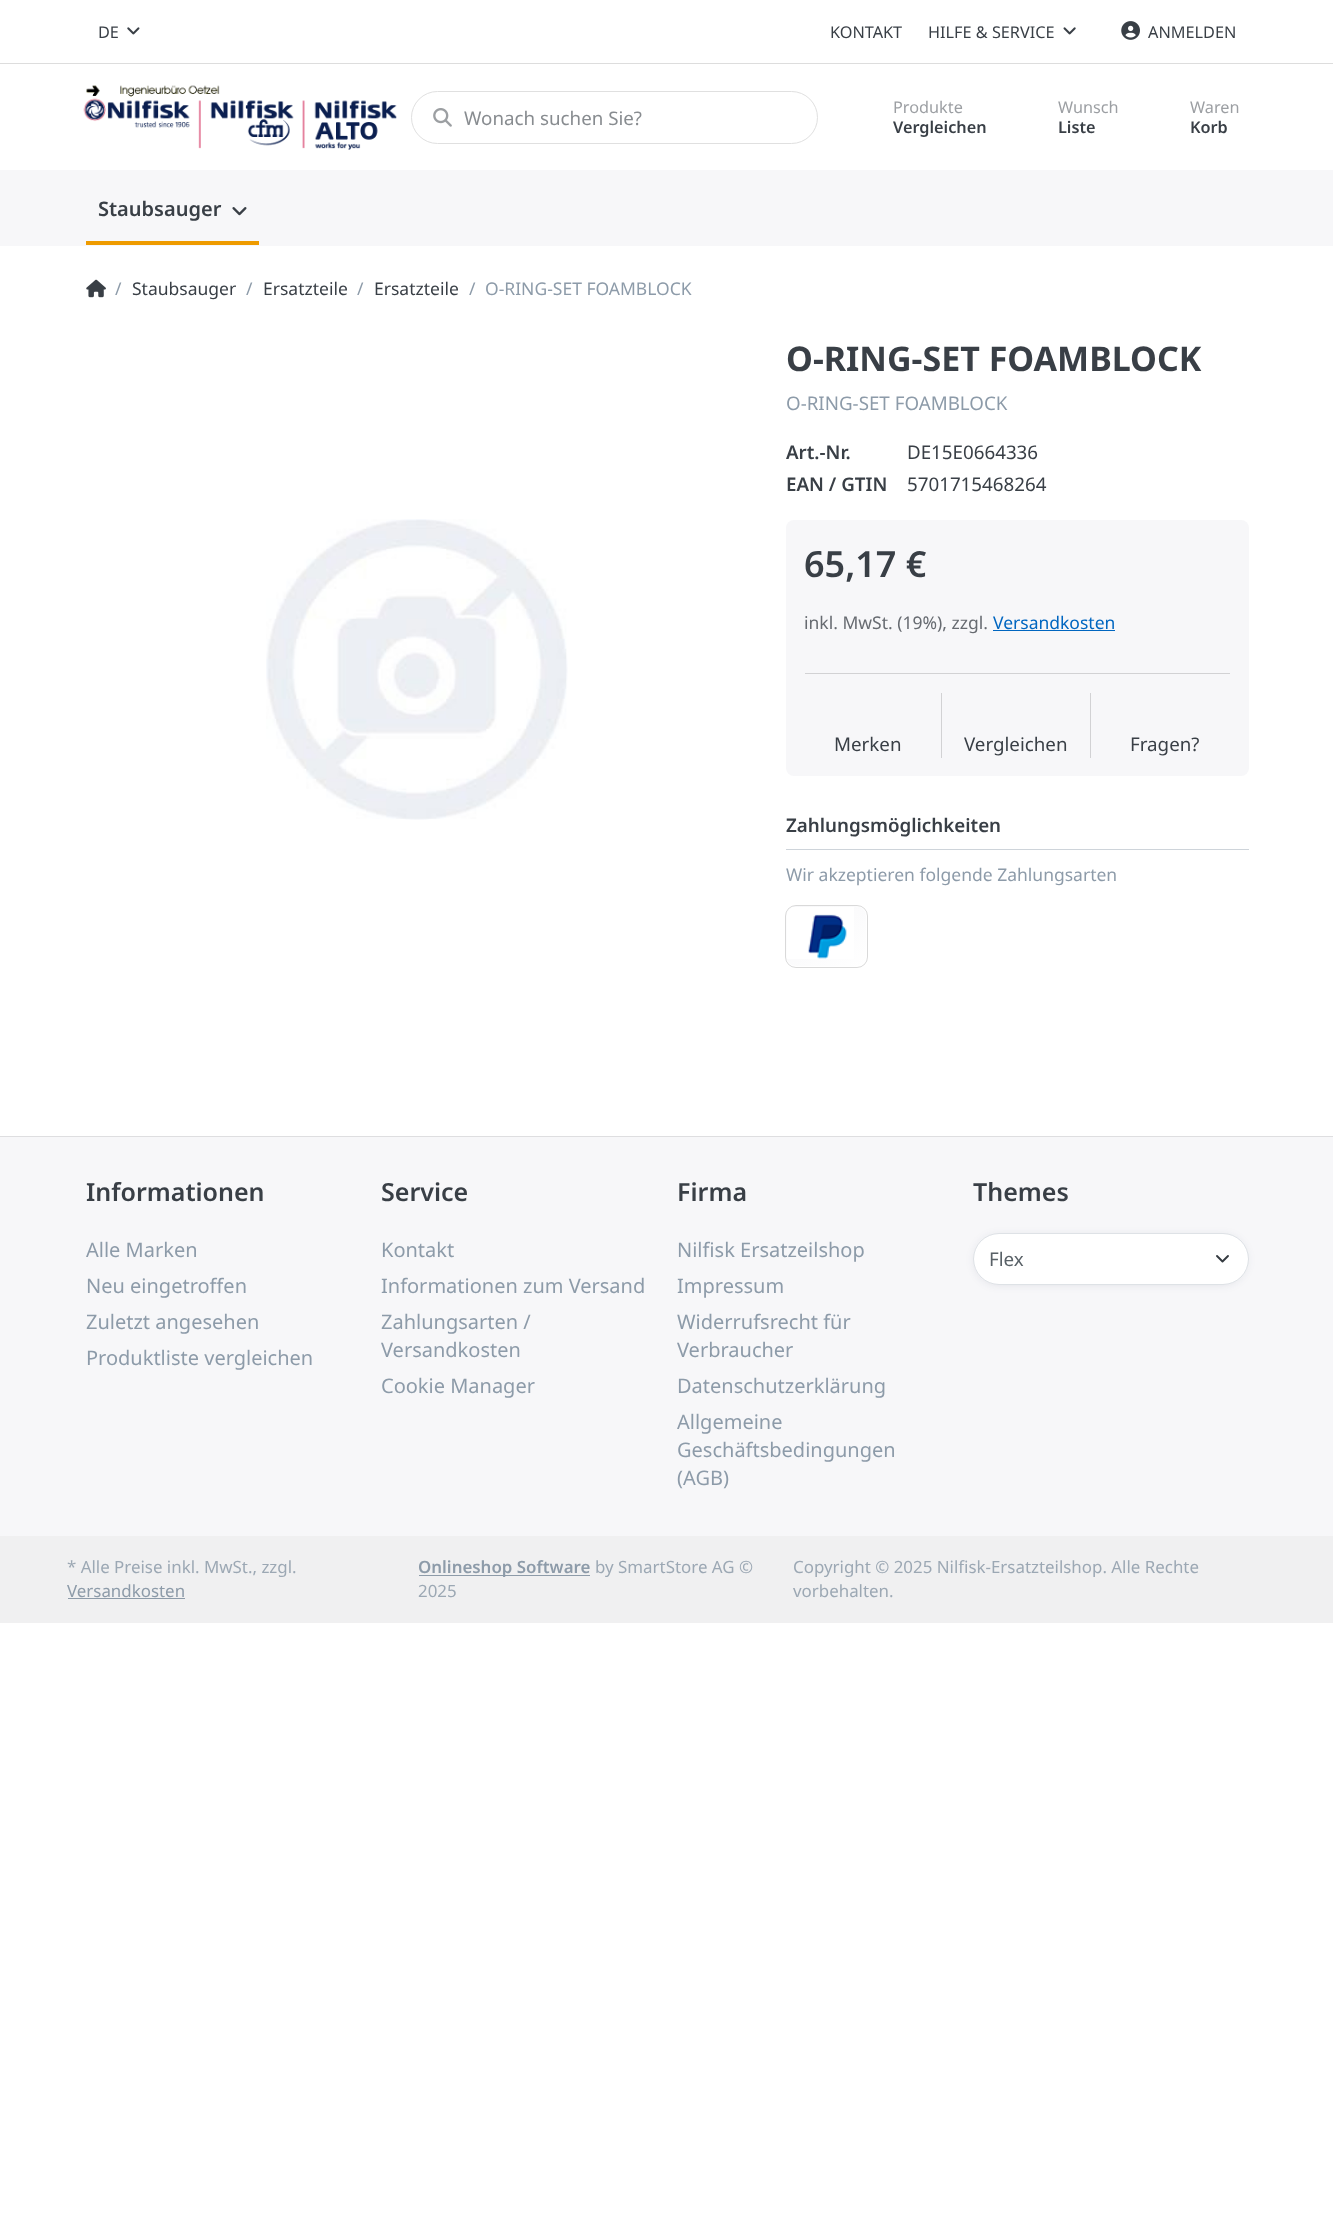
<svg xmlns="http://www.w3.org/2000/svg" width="1333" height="2222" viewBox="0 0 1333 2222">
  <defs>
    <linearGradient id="g1" gradientUnits="userSpaceOnUse" x1="797" y1="898" x2="855" y2="975"><stop offset="0" stop-color="#f7f7f9"/><stop offset="1" stop-color="#fff"/></linearGradient>
    <clipPath id="clip1"><path d="M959 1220H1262V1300H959ZM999 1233H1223C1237.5 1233 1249 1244.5 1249 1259C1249 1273.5 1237.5 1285 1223 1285H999C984.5 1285 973 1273.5 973 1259C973 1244.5 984.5 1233 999 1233Z" clip-rule="evenodd"/></clipPath>
  </defs>
  <rect width="100%" height="100%" fill="#fff"/>
  <path d="M0 63h1333v1H0z" fill="#ddd"/>
  <image x="127" y="27" width="13" height="8" href="img/1.png"/>
  <image x="1063" y="27" width="13" height="8" href="img/2.png"/>
  <image x="1121" y="21" width="19" height="19" href="img/3.png"/>
  <image x="83" y="85" width="314" height="65" href="img/4.png"/>
  <rect x="411.5" y="91.5" width="406" height="52" rx="26" fill="none" stroke="#e0e0e0"/>
  <image x="433" y="108" width="19" height="19" href="img/5.png"/>
  <path d="M0 170h1333v76H0z" fill="#f7f7f9"/>
  <image x="232" y="207" width="15" height="9" href="img/6.png"/>
  <path d="M86 241h173v4H86z" fill="#ee9b00"/>
  <image x="86" y="279" width="20" height="19" href="img/7.png"/>
  <image x="266" y="519" width="302" height="301" href="img/8.png"/>
  <rect x="786" y="520" width="463" height="256" rx="8" fill="#f7f7f9"/>
  <path d="M993 630h122v1H993z" fill="#0066c0"/>
  <path d="M805 673h425v1H805z" fill="#d2d2d4"/>
  <path d="M941 693h1v65H941z" fill="#d2d2d4"/>
  <path d="M1090 693h1v65H1090z" fill="#d2d2d4"/>
  <path d="M786 849h463v1H786z" fill="#ced4da"/>
  <rect x="786" y="906" width="80" height="60" rx="10" fill="url(#g1)"/>
  <image x="786" y="907" width="68" height="52" href="img/9.png"/>
  <rect x="785.5" y="905.5" width="82" height="62" rx="10.5" fill="none" stroke="#00000026"/>
  <path d="M0 1137h1333v399H0z" fill="#f7f7f9"/>
  <path d="M0 1136h1333v1H0z" fill="#dedee0"/>
  <g clip-path="url(#clip1)">
    <rect x="975" y="1236" width="271" height="48" rx="24" fill="#1a214b1f" filter="blur(5px)"/>
  </g>
  <rect x="974" y="1234" width="274" height="50" rx="25" fill="#fff"/>
  <path d="M1217 1256L1222.5 1261.5L1228 1256" fill="none" stroke="#343a40" stroke-width="1.9" stroke-linecap="round" stroke-linejoin="round"/>
  <rect x="973.5" y="1233.5" width="275" height="51" rx="25.5" fill="none" stroke="#dee2e6"/>
  <path d="M0 1536h1333v87H0z" fill="#f0f0f1"/>
  <path d="M68 1598h117v1H68z" fill="#8d9ba9"/>
  <path d="M419 1575h171v1H419z" fill="#8d9ba9"/>
  <g font-family="Noto Sans" font-size="16.25" fill="#393f46">
    <text x="98" y="38">DE</text>
    <text x="830" y="38">KONTAKT</text>
    <text x="928" y="38">HILFE &amp; SERVICE</text>
    <text x="1148" y="38">ANMELDEN</text>
  </g>
  <text x="464" y="125" font-family="Noto Sans" font-size="18.75" fill="#888c90">Wonach suchen Sie?</text>
  <text x="893" y="113" font-family="Noto Sans" font-size="16.25" fill="#9c9fa3">Produkte</text>
  <text x="893" y="133" font-family="Noto Sans" font-size="16.25" font-weight="600" fill="#393f46">Vergleichen</text>
  <text x="1058" y="113" font-family="Noto Sans" font-size="16.25" fill="#9c9fa3">Wunsch</text>
  <text x="1058" y="133" font-family="Noto Sans" font-size="16.25" font-weight="600" fill="#393f46">Liste</text>
  <text x="1190" y="113" font-family="Noto Sans" font-size="16.25" fill="#9c9fa3">Waren</text>
  <text x="1190" y="133" font-family="Noto Sans" font-size="16.25" font-weight="600" fill="#393f46">Korb</text>
  <text x="98" y="216" font-family="Noto Sans" font-size="20" font-weight="600" fill="#393f46">Staubsauger</text>
  <text x="115" y="295" font-family="Noto Sans" font-size="17.5" fill="#8d9ba9">/</text>
  <text x="132" y="295" font-family="Noto Sans" font-size="17.5" fill="#393f46">Staubsauger</text>
  <text x="246" y="295" font-family="Noto Sans" font-size="17.5" fill="#8d9ba9">/</text>
  <text x="263" y="295" font-family="Noto Sans" font-size="17.5" fill="#393f46">Ersatzteile</text>
  <text x="357" y="295" font-family="Noto Sans" font-size="17.5" fill="#8d9ba9">/</text>
  <text x="374" y="295" font-family="Noto Sans" font-size="17.5" fill="#393f46">Ersatzteile</text>
  <g font-family="Noto Sans" font-size="17.5" fill="#8d9ba9">
    <text x="469" y="295">/</text>
    <text x="485" y="295">O-RING-SET FOAMBLOCK</text>
  </g>
  <text x="786" y="371" font-family="Noto Sans" font-size="34" font-weight="bold" fill="#393f46">O-RING-SET FOAMBLOCK</text>
  <text x="786" y="410" font-family="Noto Sans" font-size="18.75" fill="#8d9ba9">O-RING-SET FOAMBLOCK</text>
  <text x="786" y="459" font-family="Noto Sans" font-size="18.75" font-weight="600" fill="#393f46">Art.-Nr.</text>
  <text x="907" y="459" font-family="Noto Sans" font-size="18.75" fill="#393f46">DE15E0664336</text>
  <text x="786" y="491" font-family="Noto Sans" font-size="18.75" font-weight="600" fill="#393f46">EAN / GTIN</text>
  <text x="907" y="491" font-family="Noto Sans" font-size="18.75" fill="#393f46">5701715468264</text>
  <text x="804" y="577" font-family="Noto Sans" font-size="36" font-weight="600" fill="#393f46">65,17 €</text>
  <text x="804" y="629" font-family="Noto Sans" font-size="17.5" fill="#676b71">inkl. MwSt. (19%), zzgl.</text>
  <text x="993" y="629" font-family="Noto Sans" font-size="17.5" fill="#0066c0">Versandkosten</text>
  <g font-family="Noto Sans" font-size="18.75" fill="#393f46">
    <text x="834" y="751">Merken</text>
    <text x="964" y="751">Vergleichen</text>
    <text x="1130" y="751">Fragen?</text>
  </g>
  <text x="786" y="832" font-family="Noto Sans" font-size="18.75" font-weight="600" fill="#393f46">Zahlungsmöglichkeiten</text>
  <text x="786" y="881" font-family="Noto Sans" font-size="17.5" fill="#8d9ba9">Wir akzeptieren folgende Zahlungsarten</text>
  <text x="86" y="1201" font-family="Noto Sans" font-size="25" font-weight="600" fill="#393f46">Informationen</text>
  <g font-family="Noto Sans" font-size="20" fill="#8d9ba9">
    <text x="86" y="1257">Alle Marken</text>
    <text x="86" y="1293">Neu eingetroffen</text>
    <text x="86" y="1329">Zuletzt angesehen</text>
    <text x="86" y="1365">Produktliste vergleichen</text>
  </g>
  <text x="381" y="1201" font-family="Noto Sans" font-size="25" font-weight="600" fill="#393f46">Service</text>
  <g font-family="Noto Sans" font-size="20" fill="#8d9ba9">
    <text x="381" y="1257">Kontakt</text>
    <text x="381" y="1293">Informationen zum Versand</text>
    <text x="381" y="1329">Zahlungsarten /</text>
    <text x="381" y="1357">Versandkosten</text>
    <text x="381" y="1393">Cookie Manager</text>
  </g>
  <text x="677" y="1201" font-family="Noto Sans" font-size="25" font-weight="600" fill="#393f46">Firma</text>
  <g font-family="Noto Sans" font-size="20" fill="#8d9ba9">
    <text x="677" y="1257">Nilfisk Ersatzeilshop</text>
    <text x="677" y="1293">Impressum</text>
    <text x="677" y="1329">Widerrufsrecht für</text>
    <text x="677" y="1357">Verbraucher</text>
    <text x="677" y="1393">Datenschutzerklärung</text>
    <text x="677" y="1429">Allgemeine</text>
    <text x="677" y="1457">Geschäftsbedingungen</text>
    <text x="677" y="1485">(AGB)</text>
  </g>
  <text x="973" y="1201" font-family="Noto Sans" font-size="25" font-weight="600" fill="#393f46">Themes</text>
  <text x="989" y="1266" font-family="Noto Sans" font-size="18.75" fill="#596167">Flex</text>
  <text x="67" y="1573" font-family="Noto Sans" font-size="16.9" fill="#9ca8b4">* Alle Preise inkl. MwSt., zzgl.</text>
  <text x="67" y="1597" font-family="Noto Sans" font-size="16.9" fill="#8d9ba9">Versandkosten</text>
  <text x="418" y="1573" font-family="Noto Sans" font-size="16.9" font-weight="600" fill="#8d9ba9">Onlineshop Software</text>
  <g font-family="Noto Sans" font-size="16.9" fill="#9ca8b4">
    <text x="595" y="1573">by SmartStore AG ©</text>
    <text x="418" y="1597">2025</text>
    <text x="793" y="1573">Copyright © 2025 Nilfisk-Ersatzteilshop. Alle Rechte</text>
    <text x="793" y="1597">vorbehalten.</text>
  </g>
</svg>
